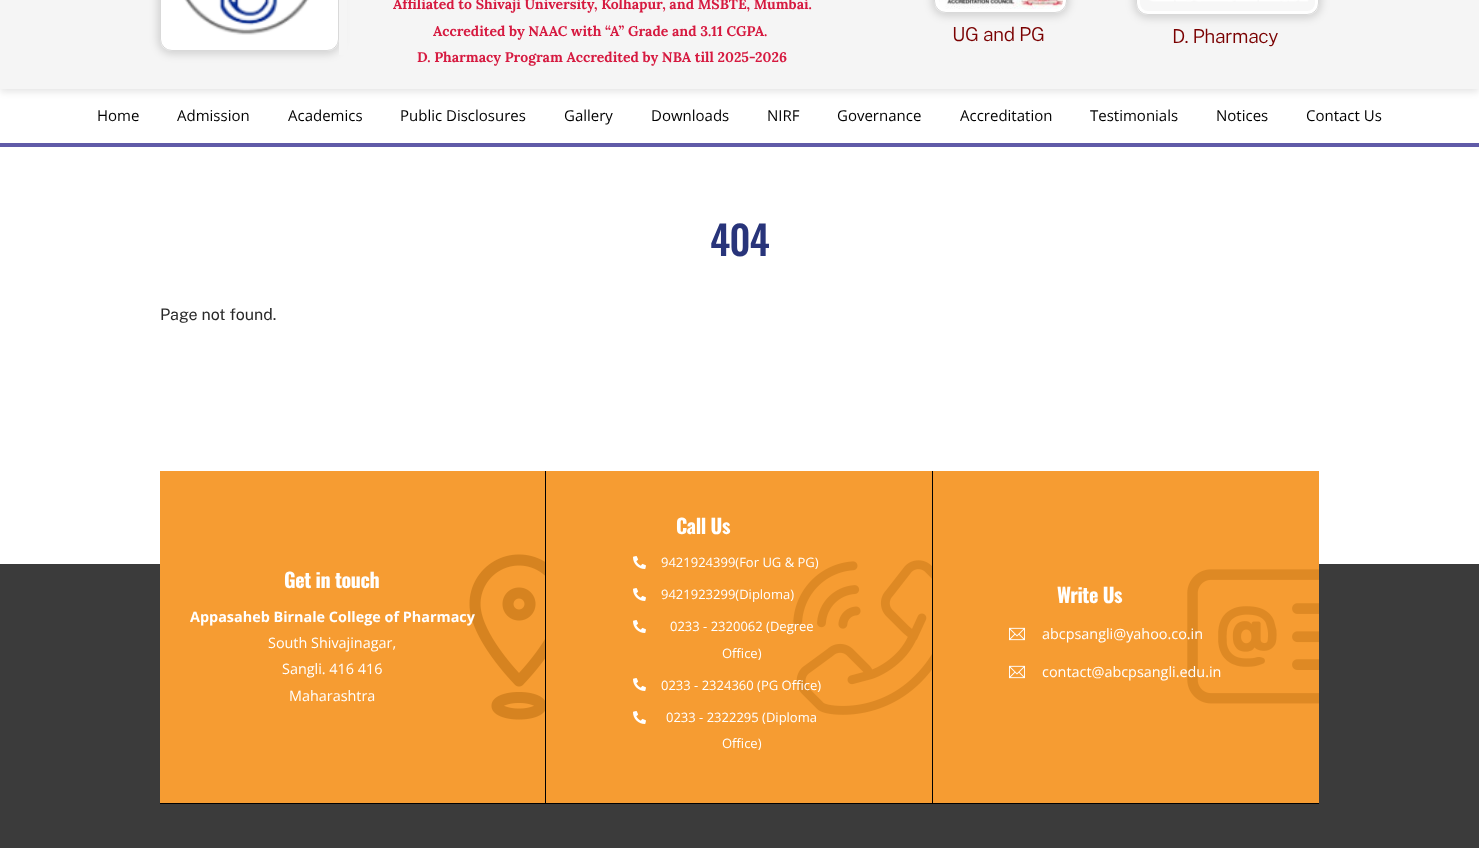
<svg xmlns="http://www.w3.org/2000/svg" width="1479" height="848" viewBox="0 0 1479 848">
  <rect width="100%" height="100%" fill="#fff"/>
  <path d="M0 -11h1479v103H0z" fill="#0000001a" filter="blur(3.5px)"/>
  <path d="M0 0h1479v89H0z" fill="#f5f5f5"/>
  <rect x="158" y="-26" width="183" height="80" rx="14" fill="#00000026" filter="blur(4px)"/>
  <rect x="160" y="-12" width="179" height="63" rx="12" fill="#fff"/>
  <rect x="160.5" y="-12.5" width="178" height="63" rx="11.5" fill="none" stroke="#00000026"/>
  <image x="184" y="0" width="125" height="35" href="img/1.png"/>
  <path d="M339 0h8v55H339z" fill="#f5f5f5"/>
  <rect x="932" y="-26" width="137" height="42" rx="14" fill="#00000026" filter="blur(4px)"/>
  <rect x="934" y="-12" width="133" height="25" rx="12" fill="#fff"/>
  <rect x="934.5" y="-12.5" width="132" height="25" rx="11.5" fill="none" stroke="#00000026"/>
  <image x="939" y="0" width="124" height="9" href="img/2.png"/>
  <rect x="1134" y="-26" width="187" height="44" rx="14" fill="#00000026" filter="blur(4px)"/>
  <rect x="1136" y="-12" width="183" height="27" rx="12" fill="#fff"/>
  <rect x="1136.5" y="-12.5" width="182" height="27" rx="11.5" fill="none" stroke="#00000026"/>
  <image x="1140" y="0" width="175" height="11" href="img/3.png"/>
  <path d="M0 143h1479v4H0z" fill="#605ba8"/>
  <path d="M0 564h1479v284H0z" fill="#3b3b3b"/>
  <path d="M160 471h385v332H160z" fill="#f69c32"/>
  <image x="469" y="554" width="76" height="166" href="img/4.png"/>
  <path d="M545 471h1v333H545z" fill="#000"/>
  <path d="M160 803h386v1H160z" fill="#000"/>
  <path d="M546 471h386v332H546z" fill="#f69c32"/>
  <image x="793" y="560" width="139" height="155" href="img/5.png"/>
  <path d="M932 471h1v333H932z" fill="#000"/>
  <path d="M546 803h773v1H546z" fill="#000"/>
  <image x="633" y="556" width="13" height="13" href="img/6.png"/>
  <image x="633" y="588" width="13" height="13" href="img/6.png"/>
  <image x="633" y="620" width="13" height="13" href="img/6.png"/>
  <image x="633" y="678" width="13" height="13" href="img/6.png"/>
  <image x="633" y="711" width="13" height="13" href="img/6.png"/>
  <path d="M933 471h386v332H933z" fill="#f69c32"/>
  <image x="1187" y="569" width="132" height="135" href="img/7.png"/>
  <image x="1009" y="627" width="16" height="14" href="img/8.png"/>
  <image x="1009" y="665" width="16" height="14" href="img/8.png"/>
  <g font-family="Lora" font-size="14" font-weight="bold" fill="#d61a40">
    <text x="393" y="9">Affiliated to Shivaji University, Kolhapur, and MSBTE, Mumbai.</text>
    <text x="433" y="36">Accredited by NAAC with “A” Grade and 3.11 CGPA.</text>
    <text x="417" y="62">D. Pharmacy Program Accredited by NBA till 2025-2026</text>
  </g>
  <g font-family="Public Sans" font-size="19.25" font-weight="300" letter-spacing="-0.4" fill="#7a0000">
    <text x="952" y="41">UG and PG</text>
    <text x="1172" y="43">D. Pharmacy</text>
  </g>
  <g font-family="Open Sans" font-size="15" fill="#000">
    <text x="97" y="121">Home</text>
    <text x="177" y="121">Admission</text>
    <text x="288" y="121">Academics</text>
    <text x="400" y="121">Public Disclosures</text>
    <text x="564" y="121">Gallery</text>
    <text x="651" y="121">Downloads</text>
    <text x="767" y="121">NIRF</text>
    <text x="837" y="121">Governance</text>
    <text x="960" y="121">Accreditation</text>
    <text x="1090" y="121">Testimonials</text>
    <text x="1216" y="121">Notices</text>
    <text x="1306" y="121">Contact Us</text>
  </g>
  <text x="710" y="256" font-family="Oswald" font-size="40" font-weight="500" letter-spacing="-1" fill="#28347a">404</text>
  <text x="160" y="320" font-family="Public Sans" font-size="16" fill="#292929">Page not found.</text>
  <text x="284" y="588" font-family="Oswald" font-size="20" font-weight="bold" letter-spacing="-0.4" fill="#fff">Get in touch</text>
  <text x="190" y="622" font-family="Open Sans" font-size="14.4" font-weight="bold" fill="#fff">Appasaheb Birnale College of Pharmacy</text>
  <g font-family="Open Sans" font-size="14.4" fill="#fff">
    <text x="268" y="648">South Shivajinagar,</text>
    <text x="282" y="674">Sangli. 416 416</text>
    <text x="289" y="701">Maharashtra</text>
  </g>
  <text x="676" y="534" font-family="Oswald" font-size="20" font-weight="bold" letter-spacing="-0.4" fill="#fff">Call Us</text>
  <g font-family="Open Sans" font-size="13" fill="#fff">
    <text x="661" y="567">9421924399(For UG &amp; PG)</text>
    <text x="661" y="599">9421923299(Diploma)</text>
    <text x="670" y="631">0233 - 2320062 (Degree</text>
    <text x="722" y="658">Office)</text>
    <text x="661" y="690">0233 - 2324360 (PG Office)</text>
    <text x="666" y="722">0233 - 2322295 (Diploma</text>
    <text x="722" y="748">Office)</text>
  </g>
  <text x="1057" y="603" font-family="Oswald" font-size="20" font-weight="bold" letter-spacing="-0.4" fill="#fff">Write Us</text>
  <g font-family="Open Sans" font-size="14.4" fill="#fff">
    <text x="1042" y="639">abcpsangli@yahoo.co.in</text>
    <text x="1042" y="677">contact@abcpsangli.edu.in</text>
  </g>
</svg>
